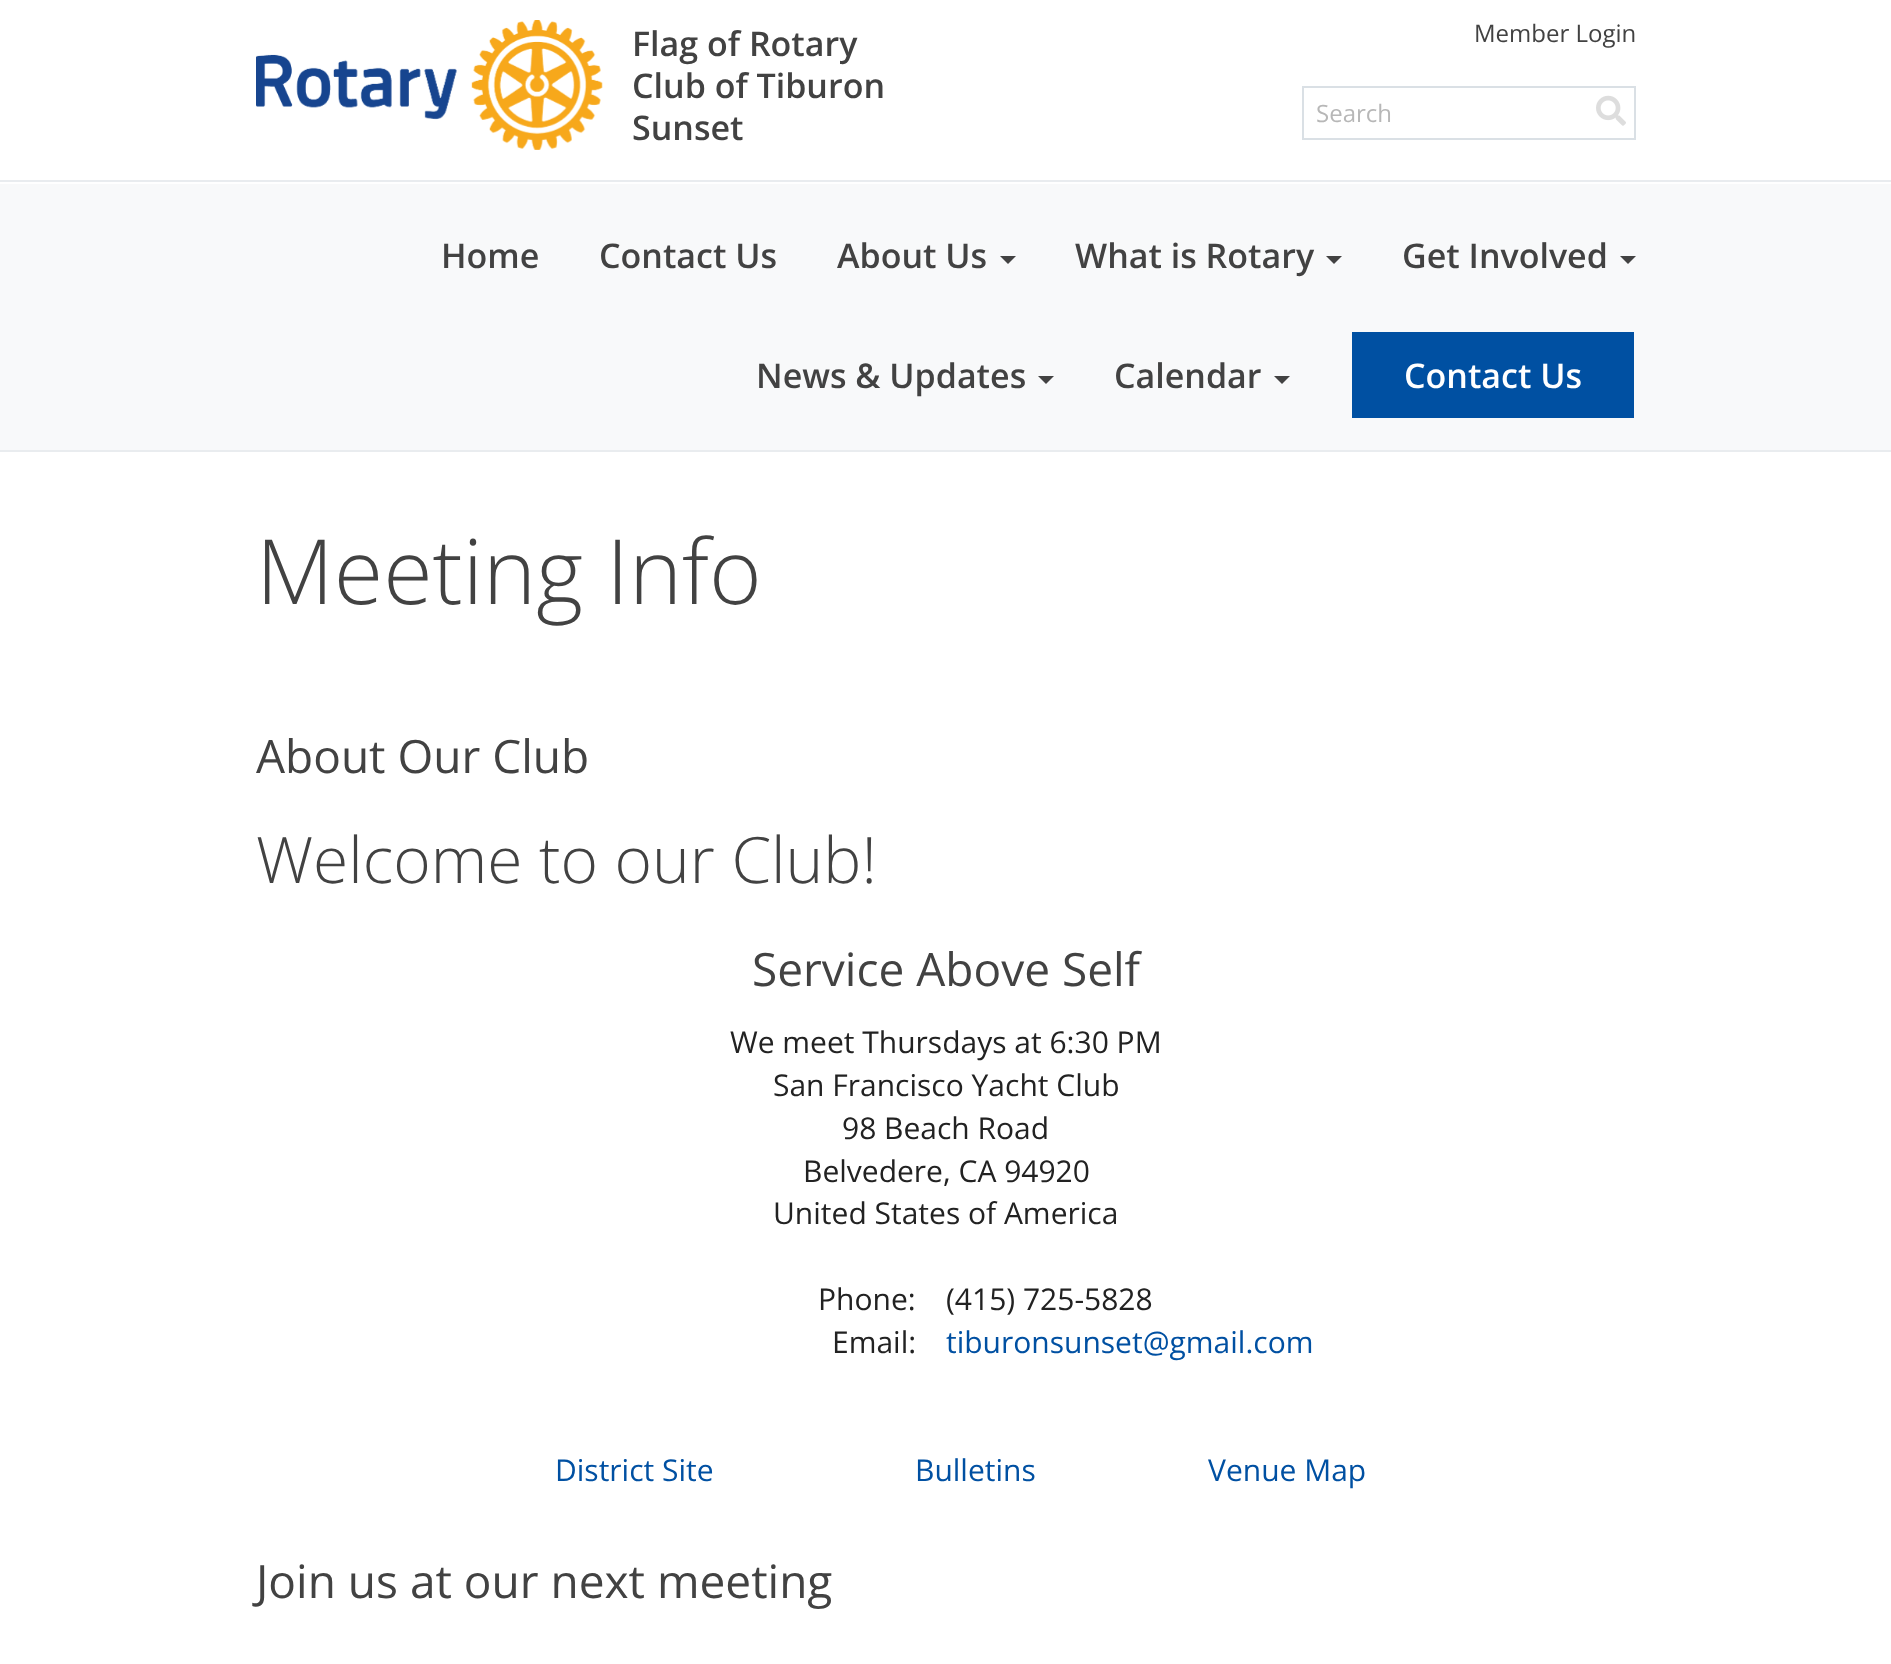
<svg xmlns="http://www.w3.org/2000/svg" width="1891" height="1664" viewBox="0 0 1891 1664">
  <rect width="100%" height="100%" fill="#fff"/>
  <image x="256" y="20" width="347" height="130" href="img/1.png"/>
  <path d="M1303 87h332v52H1303z" fill="none" stroke="#dae0e5" stroke-width="2"/>
  <image x="1596" y="95" width="30" height="31" href="img/2.png"/>
  <path d="M0 180h1891v2H0z" fill="#e9ecef"/>
  <path d="M0 184h1891v266H0z" fill="#f8f9fa"/>
  <path d="M0 450h1891v2H0z" fill="#e9ecef"/>
  <path d="M1000 256H1016L1008 264Z" fill="#424242"/>
  <path d="M1326 256H1342L1334 264Z" fill="#424242"/>
  <path d="M1620 256H1636L1628 264Z" fill="#424242"/>
  <path d="M1038 376H1054L1046 384Z" fill="#424242"/>
  <path d="M1274 376H1290L1282 384Z" fill="#424242"/>
  <path d="M1352 332h282v86H1352z" fill="#0050a2"/>
  <g font-family="Open Sans" font-size="34" font-weight="600" fill="#424242">
    <text x="632" y="56">Flag of Rotary</text>
    <text x="632" y="98">Club of Tiburon</text>
    <text x="632" y="140">Sunset</text>
  </g>
  <text x="1474" y="42" font-family="Open Sans" font-size="24" fill="#424242">Member Login</text>
  <text x="1316" y="122" font-family="Open Sans" font-size="24" fill="#b7b7b7">Search</text>
  <g font-family="Open Sans" font-size="34" font-weight="600" fill="#424242">
    <text x="441" y="268">Home</text>
    <text x="599" y="268">Contact Us</text>
    <text x="837" y="268">About Us</text>
    <text x="1075" y="268">What is Rotary</text>
    <text x="1402" y="268">Get Involved</text>
    <text x="756" y="388">News &amp; Updates</text>
    <text x="1114" y="388">Calendar</text>
  </g>
  <text x="1404" y="388" font-family="Open Sans" font-size="34" font-weight="600" fill="#fff">Contact Us</text>
  <text x="256" y="604" font-family="Open Sans" font-size="90" font-weight="300" fill="#424242">Meeting Info</text>
  <text x="256" y="773" font-family="Open Sans" font-size="46" fill="#424242">About Our Club</text>
  <text x="256" y="883" font-family="Open Sans" font-size="64" font-weight="300" fill="#424242">Welcome to our Club!</text>
  <text x="752" y="986" font-family="Open Sans" font-size="46" fill="#424242">Service Above Self</text>
  <g font-family="Open Sans" font-size="30" fill="#222">
    <text x="730" y="1053">We meet Thursdays at 6:30 PM</text>
    <text x="773" y="1096">San Francisco Yacht Club</text>
    <text x="842" y="1139">98 Beach Road</text>
    <text x="803" y="1182">Belvedere, CA 94920</text>
    <text x="773" y="1224">United States of America</text>
    <text x="818" y="1310">Phone:</text>
    <text x="946" y="1310">(415) 725-5828</text>
    <text x="832" y="1353">Email:</text>
  </g>
  <g font-family="Open Sans" font-size="30" fill="#0050a2">
    <text x="946" y="1353">tiburonsunset@gmail.com</text>
    <text x="555" y="1481">District Site</text>
    <text x="915" y="1481">Bulletins</text>
    <text x="1208" y="1481">Venue Map</text>
  </g>
  <text x="256" y="1598" font-family="Open Sans" font-size="46" fill="#424242">Join us at our next meeting</text>
</svg>
